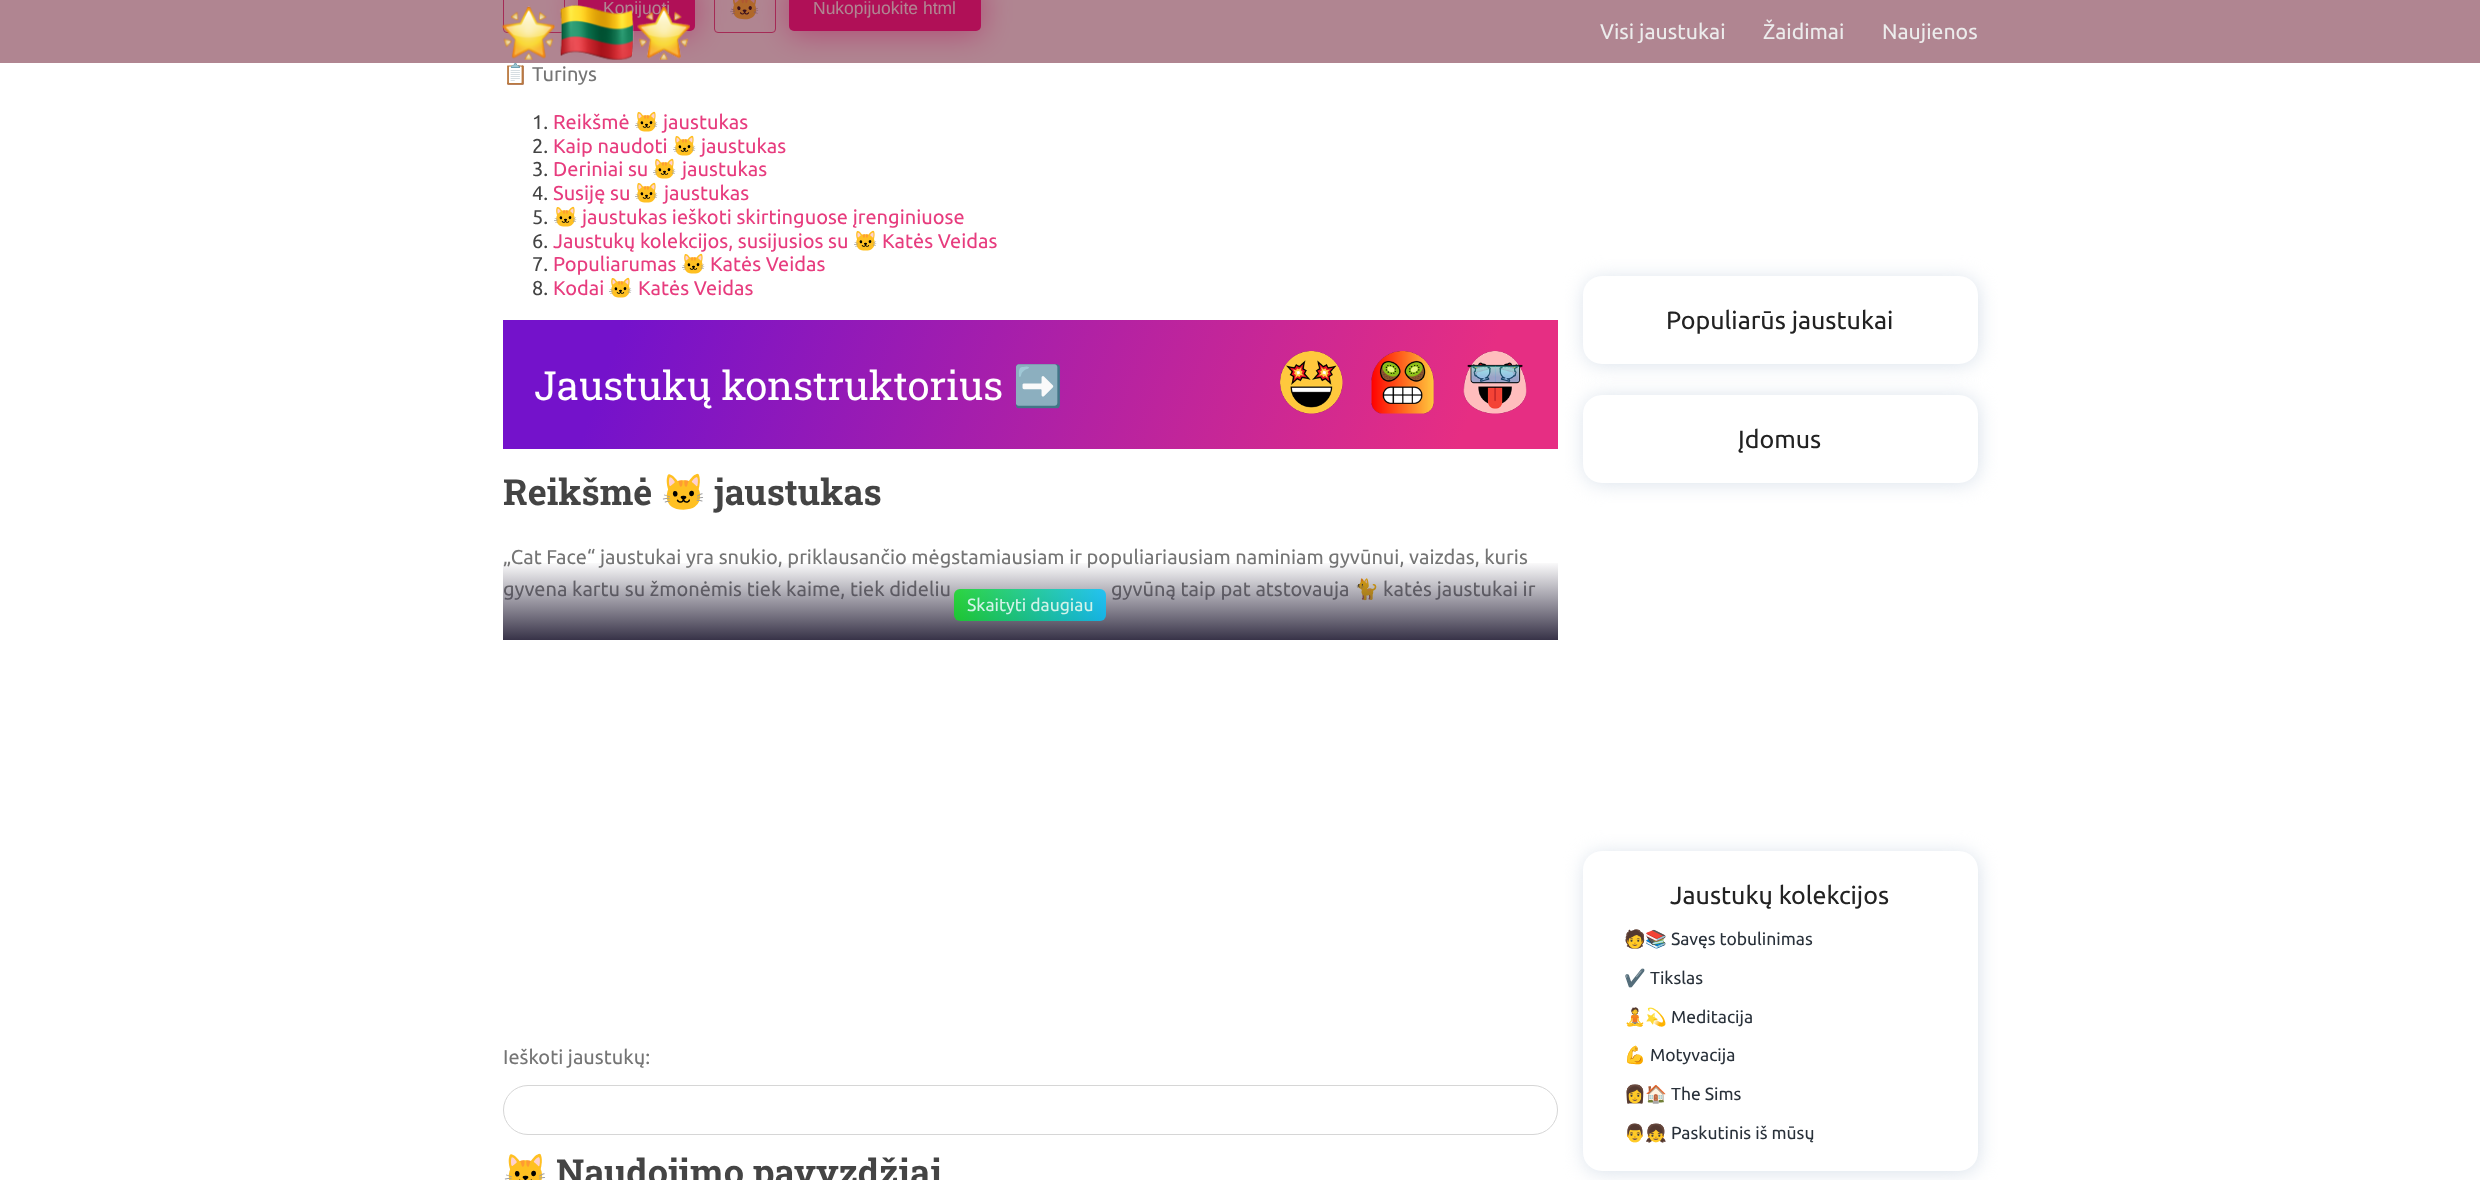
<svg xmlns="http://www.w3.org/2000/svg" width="2480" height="1180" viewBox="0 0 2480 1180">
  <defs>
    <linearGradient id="g1" gradientUnits="userSpaceOnUse" x1="542" y1="210" x2="1518" y2="558"><stop offset="0.11" stop-color="#7412cb"/><stop offset="0.91" stop-color="#e62e83"/></linearGradient>
    <clipPath id="clip1"><path d="M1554 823H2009V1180H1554ZM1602 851H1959C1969.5 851 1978 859.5 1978 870V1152C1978 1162.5 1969.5 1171 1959 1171H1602C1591.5 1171 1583 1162.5 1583 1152V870C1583 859.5 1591.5 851 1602 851Z" clip-rule="evenodd"/></clipPath>
    <clipPath id="clip2"><path d="M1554 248H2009V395H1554ZM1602 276H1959C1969.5 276 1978 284.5 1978 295V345C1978 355.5 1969.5 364 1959 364H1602C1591.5 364 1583 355.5 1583 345V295C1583 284.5 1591.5 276 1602 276Z" clip-rule="evenodd"/></clipPath>
    <clipPath id="clip3"><path d="M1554 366H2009V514H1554ZM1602 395H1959C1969.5 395 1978 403.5 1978 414V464C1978 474.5 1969.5 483 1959 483H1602C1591.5 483 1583 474.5 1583 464V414C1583 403.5 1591.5 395 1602 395Z" clip-rule="evenodd"/></clipPath>
    <linearGradient id="g2" gradientUnits="userSpaceOnUse" x1="1030" y1="640" x2="1030" y2="561"><stop offset="0" stop-color="#383348"/><stop offset="1" stop-color="#383348" stop-opacity="0"/></linearGradient>
    <linearGradient id="g3" gradientUnits="userSpaceOnUse" x1="954" y1="605" x2="1106" y2="605"><stop offset="0" stop-color="#0bdc21" stop-opacity="0.8"/><stop offset="1" stop-color="#00c5ff" stop-opacity="0.8"/></linearGradient>
  </defs>
  <rect width="100%" height="100%" fill="#fff"/>
  <rect x="503.5" y="-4.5" width="61" height="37" rx="3.5" fill="none" stroke="#e73c7e"/>
  <rect x="714.5" y="-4.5" width="61" height="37" rx="3.5" fill="none" stroke="#e73c7e"/>
  <rect x="578" y="-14" width="117" height="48" rx="5" fill="#ff008280" filter="blur(15.5px)"/>
  <rect x="578" y="-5" width="117" height="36" rx="5" fill="#ff0081"/>
  <rect x="789" y="-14" width="192" height="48" rx="5" fill="#ff008280" filter="blur(15.5px)"/>
  <rect x="789" y="-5" width="192" height="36" rx="5" fill="#ff0081"/>
  <path d="M503 320h1055v129H503z" fill="url(#g1)"/>
  <image x="1280" y="351" width="63" height="63" href="img/1.png"/>
  <image x="1371" y="351" width="63" height="63" href="img/2.png"/>
  <image x="1463" y="351" width="64" height="63" href="img/3.png"/>
  <g clip-path="url(#clip1)">
    <rect x="1584" y="853" width="395" height="320" rx="19" fill="#dae2eb" filter="blur(9.5px)"/>
  </g>
  <rect x="503.5" y="1085.5" width="1054" height="49" rx="24.5" fill="none" stroke="#d6d6d6"/>
  <g clip-path="url(#clip2)">
    <rect x="1584" y="278" width="395" height="87" rx="19" fill="#dae2eb" filter="blur(9.5px)"/>
  </g>
  <g clip-path="url(#clip3)">
    <rect x="1584" y="396" width="395" height="88" rx="19" fill="#dae2eb" filter="blur(9.5px)"/>
  </g>
  <text x="603" y="14" font-family="Liberation Sans" font-size="17.5" fill="#fff">Kopijuoti</text>
  <text x="729" y="16" font-family="Noto Color Emoji" font-size="25" fill="#000">🐱</text>
  <text x="813" y="14" font-family="Liberation Sans" font-size="17.5" fill="#fff">Nukopijuokite html</text>
  <text x="503" y="81" font-family="Noto Color Emoji" font-size="20" fill="#757575">📋</text>
  <text x="532" y="81" font-family="Ubuntu" font-size="20" fill="#757575">Turinys</text>
  <text x="532" y="129" font-family="Ubuntu" font-size="20" fill="#444">1.</text>
  <text x="553" y="129" font-family="Ubuntu" font-size="20" fill="#e73c7e">Reikšmė</text>
  <text x="634" y="129" font-family="Noto Color Emoji" font-size="20" fill="#e73c7e">🐱</text>
  <text x="663" y="129" font-family="Ubuntu" font-size="20" fill="#e73c7e">jaustukas</text>
  <text x="532" y="153" font-family="Ubuntu" font-size="20" fill="#444">2.</text>
  <text x="553" y="153" font-family="Ubuntu" font-size="20" fill="#e73c7e">Kaip naudoti</text>
  <text x="672" y="153" font-family="Noto Color Emoji" font-size="20" fill="#e73c7e">🐱</text>
  <text x="701" y="153" font-family="Ubuntu" font-size="20" fill="#e73c7e">jaustukas</text>
  <text x="532" y="176" font-family="Ubuntu" font-size="20" fill="#444">3.</text>
  <text x="553" y="176" font-family="Ubuntu" font-size="20" fill="#e73c7e">Deriniai su</text>
  <text x="652" y="176" font-family="Noto Color Emoji" font-size="20" fill="#e73c7e">🐱</text>
  <text x="682" y="176" font-family="Ubuntu" font-size="20" fill="#e73c7e">jaustukas</text>
  <text x="532" y="200" font-family="Ubuntu" font-size="20" fill="#444">4.</text>
  <text x="553" y="200" font-family="Ubuntu" font-size="20" fill="#e73c7e">Susiję su</text>
  <text x="634" y="200" font-family="Noto Color Emoji" font-size="20" fill="#e73c7e">🐱</text>
  <text x="664" y="200" font-family="Ubuntu" font-size="20" fill="#e73c7e">jaustukas</text>
  <text x="532" y="224" font-family="Ubuntu" font-size="20" fill="#444">5.</text>
  <text x="553" y="224" font-family="Noto Color Emoji" font-size="20" fill="#e73c7e">🐱</text>
  <text x="582" y="224" font-family="Ubuntu" font-size="20" fill="#e73c7e">jaustukas ieškoti skirtinguose įrenginiuose</text>
  <text x="532" y="248" font-family="Ubuntu" font-size="20" fill="#444">6.</text>
  <text x="553" y="248" font-family="Ubuntu" font-size="20" fill="#e73c7e">Jaustukų kolekcijos, susijusios su</text>
  <text x="853" y="248" font-family="Noto Color Emoji" font-size="20" fill="#e73c7e">🐱</text>
  <text x="882" y="248" font-family="Ubuntu" font-size="20" fill="#e73c7e">Katės Veidas</text>
  <text x="532" y="271" font-family="Ubuntu" font-size="20" fill="#444">7.</text>
  <text x="553" y="271" font-family="Ubuntu" font-size="20" fill="#e73c7e">Populiarumas</text>
  <text x="681" y="271" font-family="Noto Color Emoji" font-size="20" fill="#e73c7e">🐱</text>
  <text x="710" y="271" font-family="Ubuntu" font-size="20" fill="#e73c7e">Katės Veidas</text>
  <text x="532" y="295" font-family="Ubuntu" font-size="20" fill="#444">8.</text>
  <text x="553" y="295" font-family="Ubuntu" font-size="20" fill="#e73c7e">Kodai</text>
  <text x="608" y="295" font-family="Noto Color Emoji" font-size="20" fill="#e73c7e">🐱</text>
  <text x="638" y="295" font-family="Ubuntu" font-size="20" fill="#e73c7e">Katės Veidas</text>
  <text x="534" y="400" font-family="Roboto Slab" font-size="40" fill="#fff">Jaustukų konstruktorius</text>
  <text x="1013" y="400" font-family="Noto Color Emoji" font-size="40" fill="#fff">➡️</text>
  <text x="503" y="505" font-family="Roboto Slab" font-size="36" font-weight="bold" fill="#444">Reikšmė</text>
  <text x="661" y="505" font-family="Noto Color Emoji" font-size="36" font-weight="bold" fill="#444">🐱</text>
  <text x="714" y="505" font-family="Roboto Slab" font-size="36" font-weight="bold" fill="#444">jaustukas</text>
  <g font-family="Ubuntu" font-size="20" fill="#757575">
    <text x="503" y="564">„Cat Face“ jaustukai yra snukio, priklausančio mėgstamiausiam ir populiariausiam naminiam gyvūnui, vaizdas, kuris</text>
    <text x="503" y="596">gyvena kartu su žmonėmis tiek kaime, tiek dideliu</text>
    <text x="1111" y="596">gyvūną taip pat atstovauja</text>
  </g>
  <text x="1354" y="596" font-family="Noto Color Emoji" font-size="20" fill="#757575">🐈</text>
  <text x="1383" y="596" font-family="Ubuntu" font-size="20" fill="#757575">katės jaustukai ir</text>
  <path d="M503 563h1055v77H503z" fill="url(#g2)"/>
  <rect x="954" y="589" width="152" height="32" rx="6" fill="url(#g3)"/>
  <text x="967" y="611" font-family="Ubuntu" font-size="17.5" fill="#d3f3e9">Skaityti daugiau</text>
  <text x="503" y="1064" font-family="Ubuntu" font-size="20" fill="#757575">Ieškoti jaustukų:</text>
  <text x="503" y="1185" font-family="Noto Color Emoji" font-size="36" font-weight="bold" fill="#444">🐱</text>
  <text x="556" y="1185" font-family="Roboto Slab" font-size="36" font-weight="bold" fill="#444">Naudojimo pavyzdžiai</text>
  <g font-family="Ubuntu" font-size="25" fill="#222">
    <text x="1666" y="329">Populiarūs jaustukai</text>
    <text x="1738" y="448">Įdomus</text>
    <text x="1670" y="904">Jaustukų kolekcijos</text>
  </g>
  <text x="1624" y="945" font-family="Noto Color Emoji" font-size="17.5" fill="#29313a">🧑📚</text>
  <text x="1671" y="945" font-family="Ubuntu" font-size="17.5" fill="#29313a">Savęs tobulinimas</text>
  <text x="1624" y="984" font-family="Noto Color Emoji" font-size="17.5" fill="#29313a">✔️</text>
  <text x="1650" y="984" font-family="Ubuntu" font-size="17.5" fill="#29313a">Tikslas</text>
  <text x="1624" y="1023" font-family="Noto Color Emoji" font-size="17.5" fill="#29313a">🧘💫</text>
  <text x="1671" y="1023" font-family="Ubuntu" font-size="17.5" fill="#29313a">Meditacija</text>
  <text x="1624" y="1061" font-family="Noto Color Emoji" font-size="17.5" fill="#29313a">💪</text>
  <text x="1650" y="1061" font-family="Ubuntu" font-size="17.5" fill="#29313a">Motyvacija</text>
  <text x="1624" y="1100" font-family="Noto Color Emoji" font-size="17.5" fill="#29313a">👩🏠</text>
  <text x="1671" y="1100" font-family="Ubuntu" font-size="17.5" fill="#29313a">The Sims</text>
  <text x="1624" y="1139" font-family="Noto Color Emoji" font-size="17.5" fill="#29313a">👨👧</text>
  <text x="1671" y="1139" font-family="Ubuntu" font-size="17.5" fill="#29313a">Paskutinis iš mūsų</text>
  <path d="M0 0h2480v63H0z" fill="#6d1e338a"/>
  <image x="502" y="5" width="188" height="55" href="img/4.png"/>
  <g font-family="Ubuntu" font-size="21.25" fill="#ececec">
    <text x="1600" y="39">Visi jaustukai</text>
    <text x="1763" y="39">Žaidimai</text>
    <text x="1882" y="39">Naujienos</text>
  </g>
</svg>
